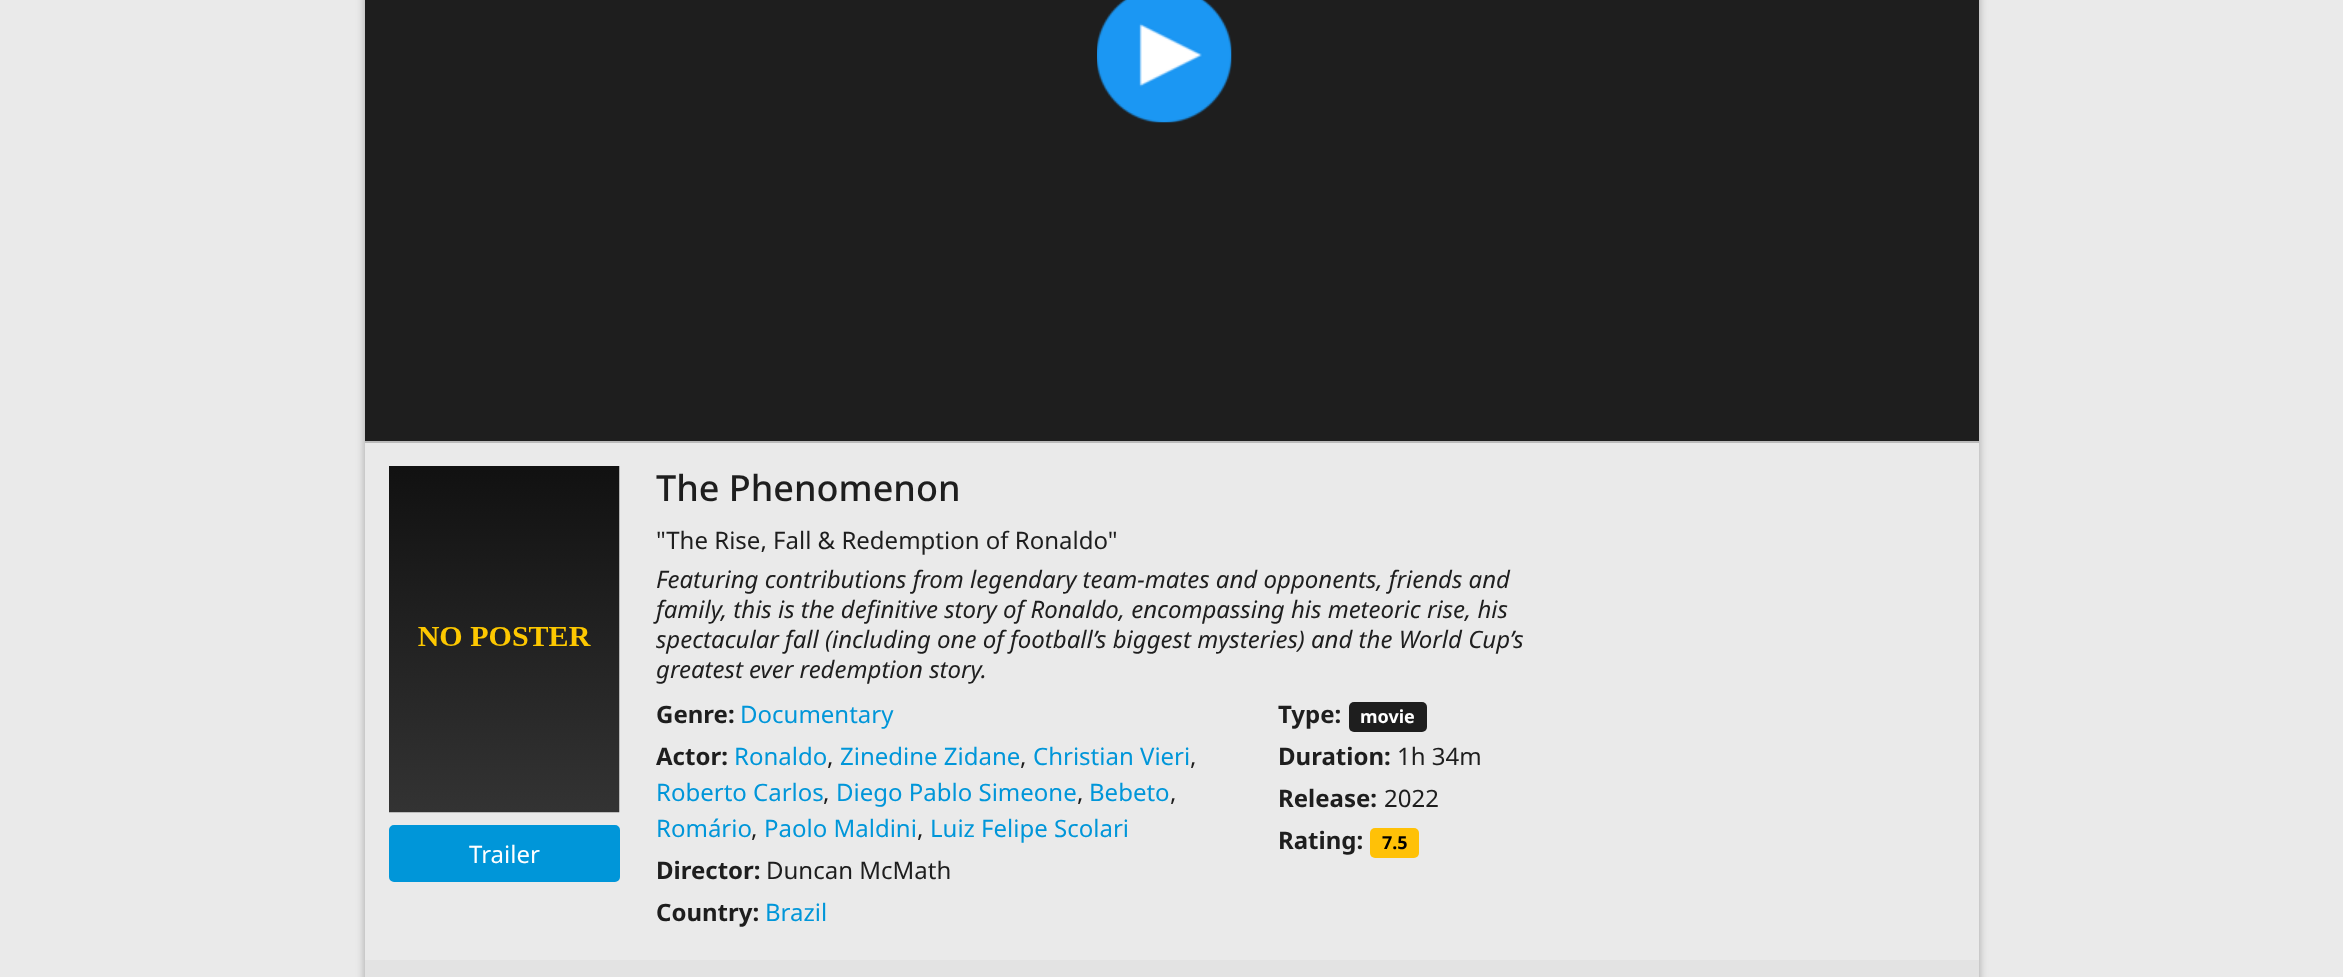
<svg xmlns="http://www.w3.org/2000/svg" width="2343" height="977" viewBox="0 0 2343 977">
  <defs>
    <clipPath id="clip1"><path d="M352 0H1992V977H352ZM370-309H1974C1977-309 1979-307 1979-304V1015C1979 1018 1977 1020 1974 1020H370C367 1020 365 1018 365 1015V-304C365-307 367-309 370-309Z" clip-rule="evenodd"/></clipPath>
  </defs>
  <rect width="100%" height="100%" fill="#eaeaea"/>
  <g clip-path="url(#clip1)">
    <rect x="365" y="-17" width="1614" height="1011" rx="5" fill="#0000004d" filter="blur(4px)"/>
  </g>
  <path d="M365 441h1614v2H365z" fill="#21252908"/>
  <path d="M365 441h1614v2H365z" fill="#0000002e"/>
  <path d="M365 0h1614v441H365z" fill="#1e1e1e"/>
  <image x="1097" y="0" width="135" height="123" href="img/1.png"/>
  <image x="389" y="466" width="231" height="347" href="img/2.png"/>
  <rect x="390" y="826" width="229" height="55" rx="4" fill="#0096d9" stroke="#0096d9" stroke-width="2"/>
  <rect x="1349" y="702" width="78" height="30" rx="5" fill="#1e1e1e"/>
  <rect x="1370" y="828" width="49" height="30" rx="5" fill="#ffc107"/>
  <path d="M365 960h1614v17H365z" fill="#21252908"/>
  <text x="469" y="863" font-family="Noto Sans" font-size="24" fill="#fff">Trailer</text>
  <text x="656" y="501" font-family="Noto Sans" font-size="36" font-weight="500" fill="#1e1e1e">The Phenomenon</text>
  <text x="656" y="549" font-family="Noto Sans" font-size="24" fill="#1e1e1e">"The Rise, Fall &amp; Redemption of Ronaldo"</text>
  <g font-family="Noto Sans" font-size="24" font-style="italic" fill="#1e1e1e">
    <text x="656" y="588">Featuring contributions from legendary team-mates and opponents, friends and</text>
    <text x="656" y="618">family, this is the definitive story of Ronaldo, encompassing his meteoric rise, his</text>
    <text x="656" y="648">spectacular fall (including one of football’s biggest mysteries) and the World Cup’s</text>
    <text x="656" y="678">greatest ever redemption story.</text>
  </g>
  <text x="656" y="723" font-family="Noto Sans" font-size="24" font-weight="bold" fill="#1e1e1e">Genre:</text>
  <text x="740" y="723" font-family="Noto Sans" font-size="24" fill="#0096d9">Documentary</text>
  <text x="656" y="765" font-family="Noto Sans" font-size="24" font-weight="bold" fill="#1e1e1e">Actor:</text>
  <text x="734" y="765" font-family="Noto Sans" font-size="24" fill="#0096d9">Ronaldo</text>
  <text x="827" y="765" font-family="Noto Sans" font-size="24" fill="#1e1e1e">,</text>
  <text x="840" y="765" font-family="Noto Sans" font-size="24" fill="#0096d9">Zinedine Zidane</text>
  <text x="1020" y="765" font-family="Noto Sans" font-size="24" fill="#1e1e1e">,</text>
  <text x="1033" y="765" font-family="Noto Sans" font-size="24" fill="#0096d9">Christian Vieri</text>
  <text x="1190" y="765" font-family="Noto Sans" font-size="24" fill="#1e1e1e">,</text>
  <text x="656" y="801" font-family="Noto Sans" font-size="24" fill="#0096d9">Roberto Carlos</text>
  <text x="823" y="801" font-family="Noto Sans" font-size="24" fill="#1e1e1e">,</text>
  <text x="836" y="801" font-family="Noto Sans" font-size="24" fill="#0096d9">Diego Pablo Simeone</text>
  <text x="1077" y="801" font-family="Noto Sans" font-size="24" fill="#1e1e1e">,</text>
  <text x="1089" y="801" font-family="Noto Sans" font-size="24" fill="#0096d9">Bebeto</text>
  <text x="1170" y="801" font-family="Noto Sans" font-size="24" fill="#1e1e1e">,</text>
  <text x="656" y="837" font-family="Noto Sans" font-size="24" fill="#0096d9">Romário</text>
  <text x="751" y="837" font-family="Noto Sans" font-size="24" fill="#1e1e1e">,</text>
  <text x="764" y="837" font-family="Noto Sans" font-size="24" fill="#0096d9">Paolo Maldini</text>
  <text x="917" y="837" font-family="Noto Sans" font-size="24" fill="#1e1e1e">,</text>
  <text x="930" y="837" font-family="Noto Sans" font-size="24" fill="#0096d9">Luiz Felipe Scolari</text>
  <text x="656" y="879" font-family="Noto Sans" font-size="24" font-weight="bold" fill="#1e1e1e">Director:</text>
  <text x="766" y="879" font-family="Noto Sans" font-size="24" fill="#1e1e1e">Duncan McMath</text>
  <text x="656" y="921" font-family="Noto Sans" font-size="24" font-weight="bold" fill="#1e1e1e">Country:</text>
  <text x="765" y="921" font-family="Noto Sans" font-size="24" fill="#0096d9">Brazil</text>
  <text x="1278" y="723" font-family="Noto Sans" font-size="24" font-weight="bold" fill="#1e1e1e">Type:</text>
  <text x="1360" y="723" font-family="Noto Sans" font-size="18" font-weight="bold" fill="#fff">movie</text>
  <text x="1278" y="765" font-family="Noto Sans" font-size="24" font-weight="bold" fill="#1e1e1e">Duration:</text>
  <text x="1397" y="765" font-family="Noto Sans" font-size="24" fill="#1e1e1e">1h 34m</text>
  <text x="1278" y="807" font-family="Noto Sans" font-size="24" font-weight="bold" fill="#1e1e1e">Release:</text>
  <text x="1384" y="807" font-family="Noto Sans" font-size="24" fill="#1e1e1e">2022</text>
  <text x="1278" y="849" font-family="Noto Sans" font-size="24" font-weight="bold" fill="#1e1e1e">Rating:</text>
  <text x="1382" y="849" font-family="Noto Sans" font-size="18" font-weight="bold" fill="#000">7.5</text>
</svg>
